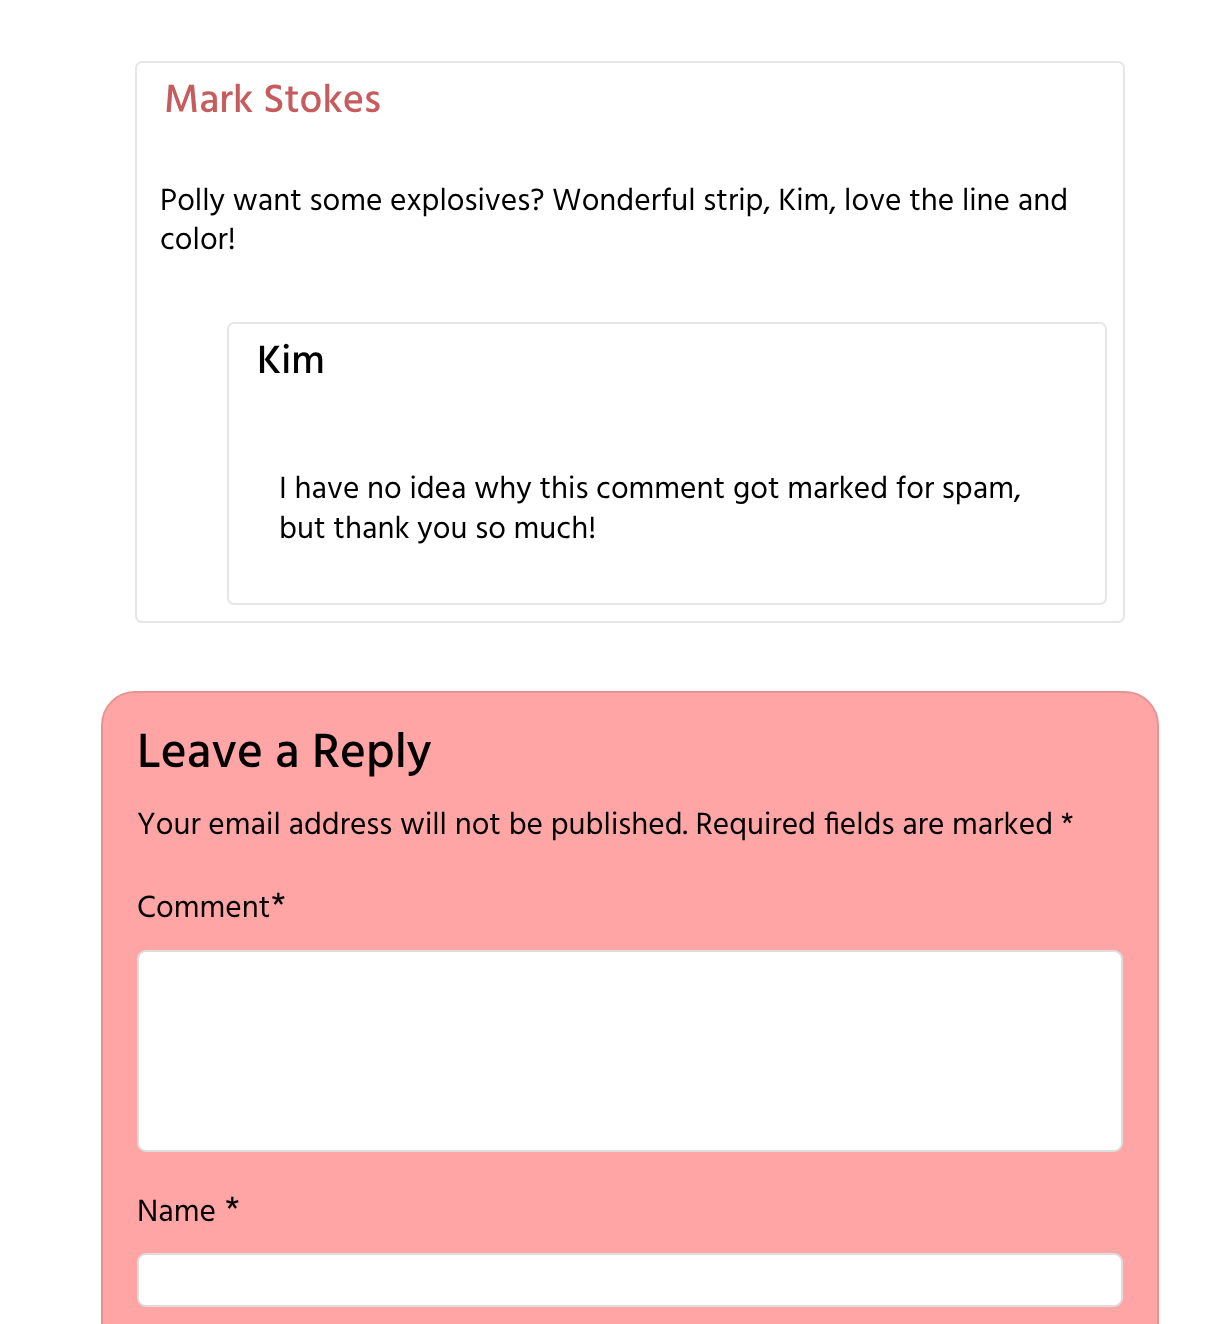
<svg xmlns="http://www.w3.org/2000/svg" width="1226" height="1324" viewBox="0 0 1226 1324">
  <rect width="100%" height="100%" fill="#fff"/>
  <rect x="136" y="62" width="988" height="560" rx="6" fill="none" stroke="#e6e6e6" stroke-width="2"/>
  <rect x="228" y="323" width="878" height="281" rx="6" fill="none" stroke="#e6e6e6" stroke-width="2"/>
  <rect x="101" y="691" width="1058" height="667" rx="34" fill="#ffa5a5"/>
  <rect x="102" y="692" width="1056" height="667" rx="33" fill="none" stroke="#0000001a" stroke-width="2"/>
  <rect x="138" y="951" width="984" height="200" rx="8" fill="#fff" stroke="#ddd" stroke-width="2"/>
  <rect x="138" y="1254" width="984" height="52" rx="8" fill="#fff" stroke="#ddd" stroke-width="2"/>
  <text x="164" y="112" font-family="Hind" font-size="40.5" font-weight="500" fill="#c75c5e">Mark Stokes</text>
  <g font-family="Hind" font-size="31.5" fill="#000">
    <text x="160" y="210">Polly want some explosives? Wonderful strip, Kim, love the line and</text>
    <text x="160" y="249">color!</text>
  </g>
  <text x="257" y="373" font-family="Hind" font-size="40.5" font-weight="500" fill="#000">Kim</text>
  <g font-family="Hind" font-size="31.5" fill="#000">
    <text x="279" y="498">I have no idea why this comment got marked for spam,</text>
    <text x="279" y="538">but thank you so much!</text>
  </g>
  <text x="137" y="767" font-family="Hind" font-size="49.5" font-weight="500" fill="#000">Leave a Reply</text>
  <g font-family="Hind" font-size="31.5" fill="#000">
    <text x="137" y="834">Your email address will not be published. Required fields are marked *</text>
    <text x="137" y="917">Comment</text>
  </g>
  <text x="271" y="917" font-family="Hind" font-size="36" fill="#000">*</text>
  <text x="137" y="1221" font-family="Hind" font-size="31.5" fill="#000">Name</text>
  <text x="225" y="1221" font-family="Hind" font-size="36" fill="#000">*</text>
</svg>
